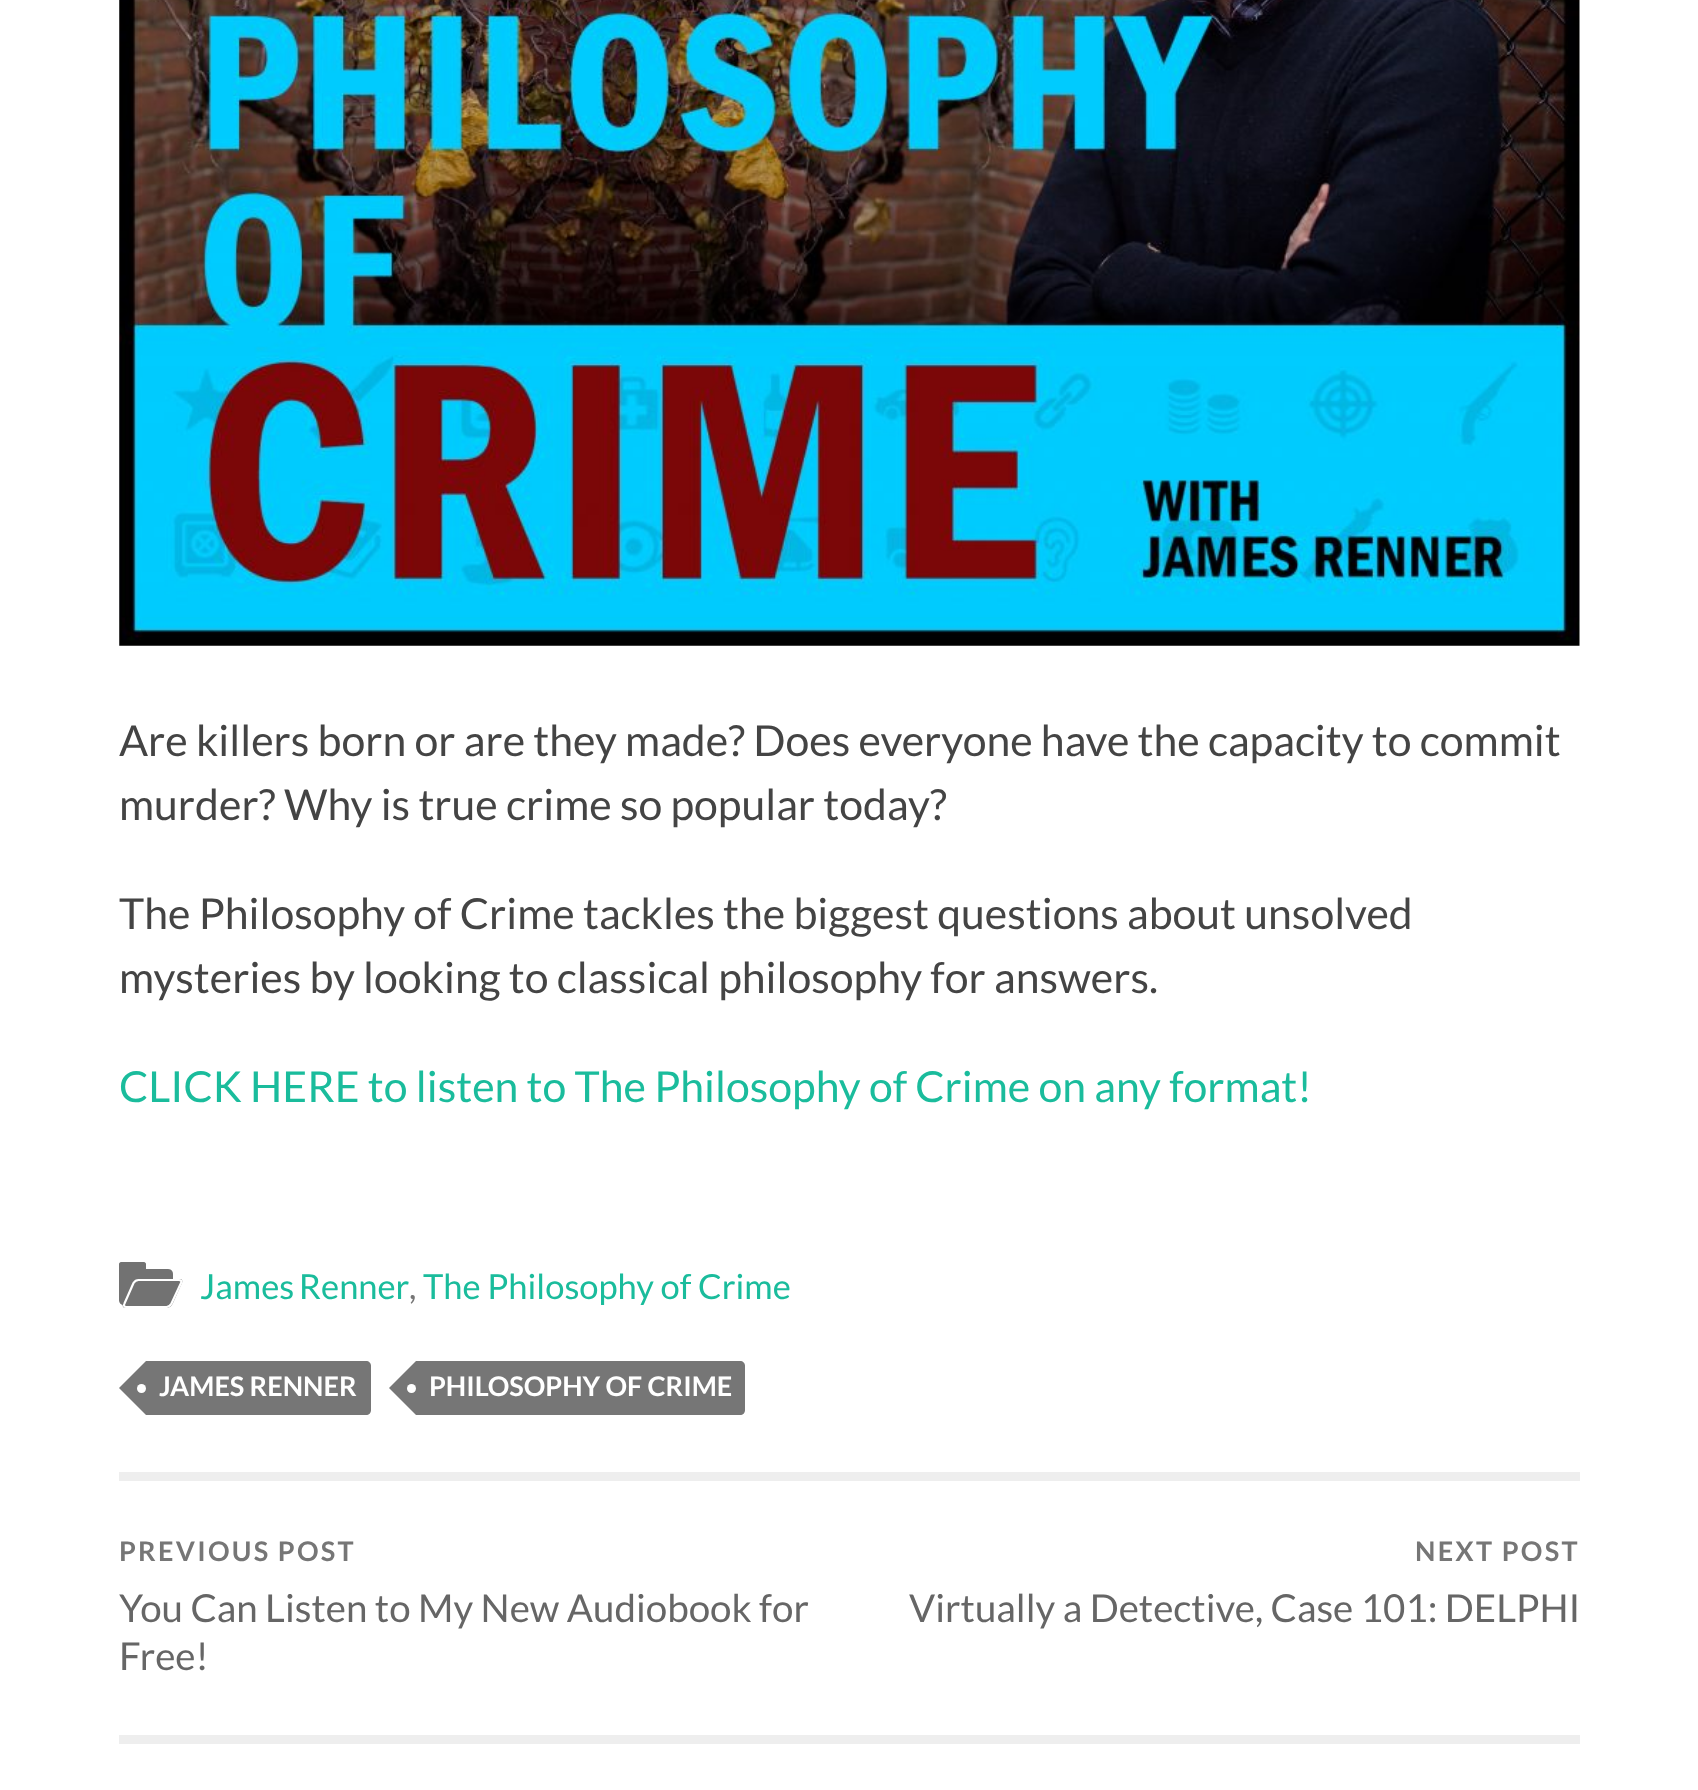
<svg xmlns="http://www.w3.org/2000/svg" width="1698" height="1790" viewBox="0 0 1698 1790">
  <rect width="100%" height="100%" fill="#fff"/>
  <image x="119" y="0" width="1461" height="646" href="img/1.png"/>
  <path d="M119 1269H168C171 1269 173 1271 173 1274V1300C173 1303 171 1305 168 1305H124C121 1305 119 1303 119 1300Z" fill="#727272"/>
  <path d="M121 1262H144C145 1262 146 1263 146 1264V1269H119V1264C119 1263 120 1262 121 1262Z" fill="#727272"/>
  <path d="M139 1279H180C182 1279 183 1281 182 1283L173 1303C172 1306 169 1308 166 1308H126C123 1308 122 1306 123 1303L133 1283C134 1281 137 1279 139 1279Z" fill="#727272"/>
  <path d="M138.5 1280H179C181 1280 182 1281.5 181 1283L171.5 1303.5C170.5 1305 168.5 1307 166.5 1307H126C124 1307 123.5 1305 124.5 1303.5L133.5 1283C134.5 1281.5 137 1280 138.5 1280Z" fill="none" stroke="#fff" stroke-width="2.2"/>
  <path d="M146 1361H366C369 1361 371 1363 371 1366V1410C371 1413 369 1415 366 1415H146Z" fill="#767676"/>
  <path d="M146 1361V1415L119 1388Z" fill="#767676"/>
  <circle cx="141.5" cy="1388.5" r="4.5" fill="#fff"/>
  <path d="M416 1361H740C743 1361 745 1363 745 1366V1410C745 1413 743 1415 740 1415H416Z" fill="#767676"/>
  <path d="M416 1361V1415L389 1388Z" fill="#767676"/>
  <circle cx="411.5" cy="1388.5" r="4.5" fill="#fff"/>
  <path d="M119 1472h1461v9H119z" fill="#eee"/>
  <path d="M119 1735h1461v9H119z" fill="#eee"/>
  <g font-family="Lato" font-size="42.75" fill="#444">
    <text x="119" y="756">Are killers born or are they made? Does everyone have the capacity to commit</text>
    <text x="119" y="820">murder? Why is true crime so popular today?</text>
    <text x="119" y="929">The Philosophy of Crime tackles the biggest questions about unsolved</text>
    <text x="119" y="993">mysteries by looking to classical philosophy for answers.</text>
  </g>
  <text x="119" y="1102" font-family="Lato" font-size="42.75" fill="#1abc9c">CLICK HERE to listen to The Philosophy of Crime on any format!</text>
  <text x="200" y="1299" word-spacing="-2" font-family="Lato" font-size="34.5" fill="#1abc9c">James Renner</text>
  <text x="409" y="1299" font-family="Lato" font-size="34.5" fill="#767676">,</text>
  <text x="423" y="1299" font-family="Lato" font-size="34.5" fill="#1abc9c">The Philosophy of Crime</text>
  <g font-family="Lato" font-size="27" font-weight="bold" fill="#fff">
    <text x="159" y="1396">JAMES RENNER</text>
    <text x="429" y="1396">PHILOSOPHY OF CRIME</text>
  </g>
  <text x="119" y="1561" font-family="Lato" font-size="27" font-weight="bold" letter-spacing="2.25" fill="#767676">PREVIOUS POST</text>
  <g font-family="Lato" font-size="38.5" fill="#666">
    <text x="119" y="1622">You Can Listen to My New Audiobook for</text>
    <text x="119" y="1670">Free!</text>
  </g>
  <text x="1415" y="1561" font-family="Lato" font-size="27" font-weight="bold" letter-spacing="2.25" fill="#767676">NEXT POST</text>
  <text x="909" y="1622" font-family="Lato" font-size="38.5" fill="#666">Virtually a Detective, Case 101: DELPHI</text>
</svg>
